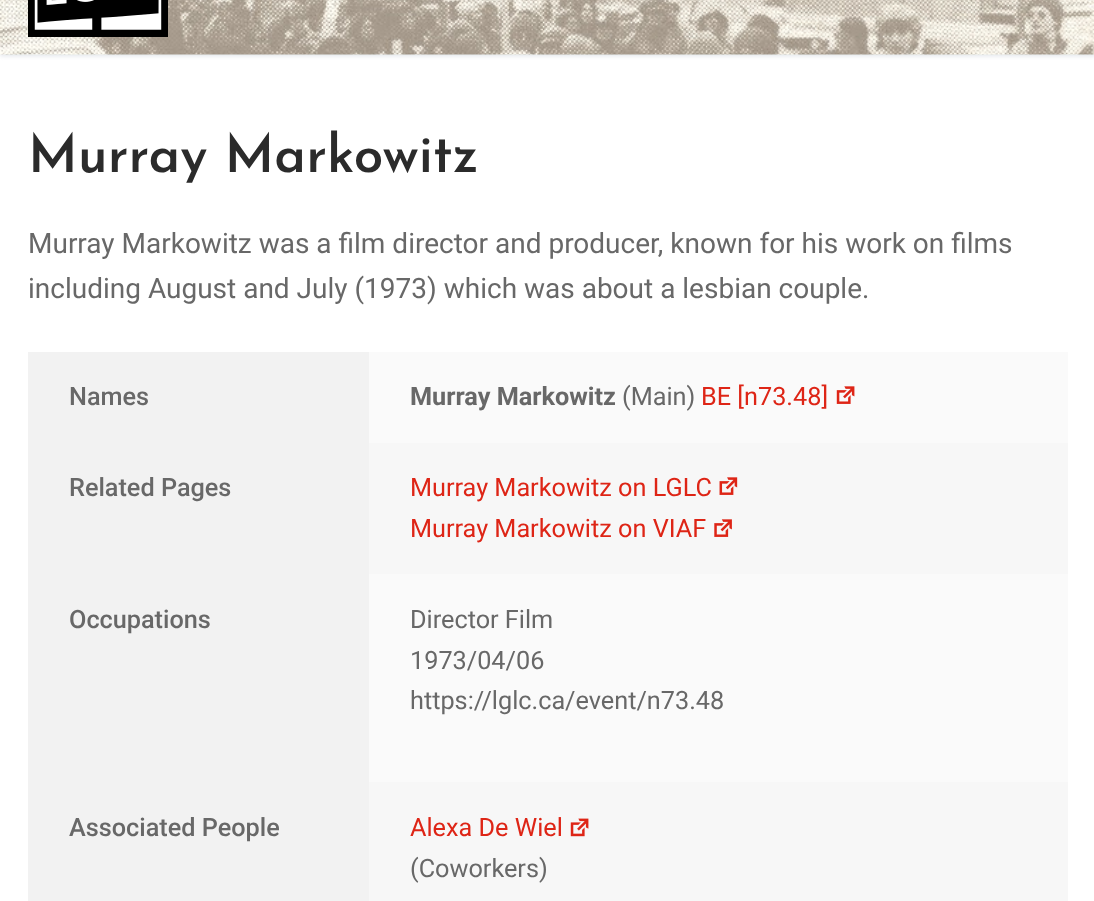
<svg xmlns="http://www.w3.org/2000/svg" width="1094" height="901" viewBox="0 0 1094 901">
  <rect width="100%" height="100%" fill="#fff"/>
  <path d="M0 -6h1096v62H0z" fill="#e1e5ea" filter="blur(2px)"/>
  <image x="0" y="0" width="1094" height="55" href="img/1.png"/>
  <image x="28" y="0" width="140" height="37" href="img/2.png"/>
  <path d="M28 352h341v549H28z" fill="#f2f2f2"/>
  <path d="M369 352h699v91H369z" fill="#fafafa"/>
  <image x="836" y="386" width="19" height="18" href="img/3.png"/>
  <path d="M369 443h699v131H369z" fill="#f7f7f7"/>
  <image x="719" y="477" width="19" height="18" href="img/4.png"/>
  <image x="714" y="519" width="18" height="18" href="img/5.png"/>
  <path d="M369 574h699v208H369z" fill="#fafafa"/>
  <path d="M369 782h699v119H369z" fill="#f7f7f7"/>
  <image x="570" y="818" width="19" height="19" href="img/6.png"/>
  <text x="28" y="172" font-family="Josefin Sans" font-size="53.25" font-weight="600" fill="#2b2b2b">Murray Markowitz</text>
  <g font-family="Roboto" font-size="28" fill="#686868">
    <text x="28" y="253">Murray Markowitz was a film director and producer, known for his work on films</text>
    <text x="28" y="298">including August and July (1973) which was about a lesbian couple.</text>
  </g>
  <text x="69" y="405" font-family="Roboto" font-size="25.25" font-weight="500" fill="#686868">Names</text>
  <text x="410" y="405" font-family="Roboto" font-size="25.25" font-weight="bold" fill="#686868">Murray Markowitz</text>
  <text x="622" y="405" font-family="Roboto" font-size="25.25" fill="#686868">(Main)</text>
  <text x="701" y="405" font-family="Roboto" font-size="25.25" fill="#de2516">BE [n73.48]</text>
  <text x="69" y="496" font-family="Roboto" font-size="25.25" font-weight="500" fill="#686868">Related Pages</text>
  <g font-family="Roboto" font-size="25.25" fill="#de2516">
    <text x="410" y="496">Murray Markowitz on LGLC</text>
    <text x="410" y="537">Murray Markowitz on VIAF</text>
  </g>
  <text x="69" y="628" font-family="Roboto" font-size="25.25" font-weight="500" fill="#686868">Occupations</text>
  <g font-family="Roboto" font-size="25.25" fill="#686868">
    <text x="410" y="628">Director Film</text>
    <text x="410" y="669">1973/04/06</text>
    <text x="410" y="709">https://lglc.ca/event/n73.48</text>
  </g>
  <text x="69" y="836" font-family="Roboto" font-size="25.25" font-weight="500" fill="#686868">Associated People</text>
  <text x="410" y="836" font-family="Roboto" font-size="25.25" fill="#de2516">Alexa De Wiel</text>
  <text x="410" y="877" font-family="Roboto" font-size="25.25" fill="#686868">(Coworkers)</text>
</svg>
